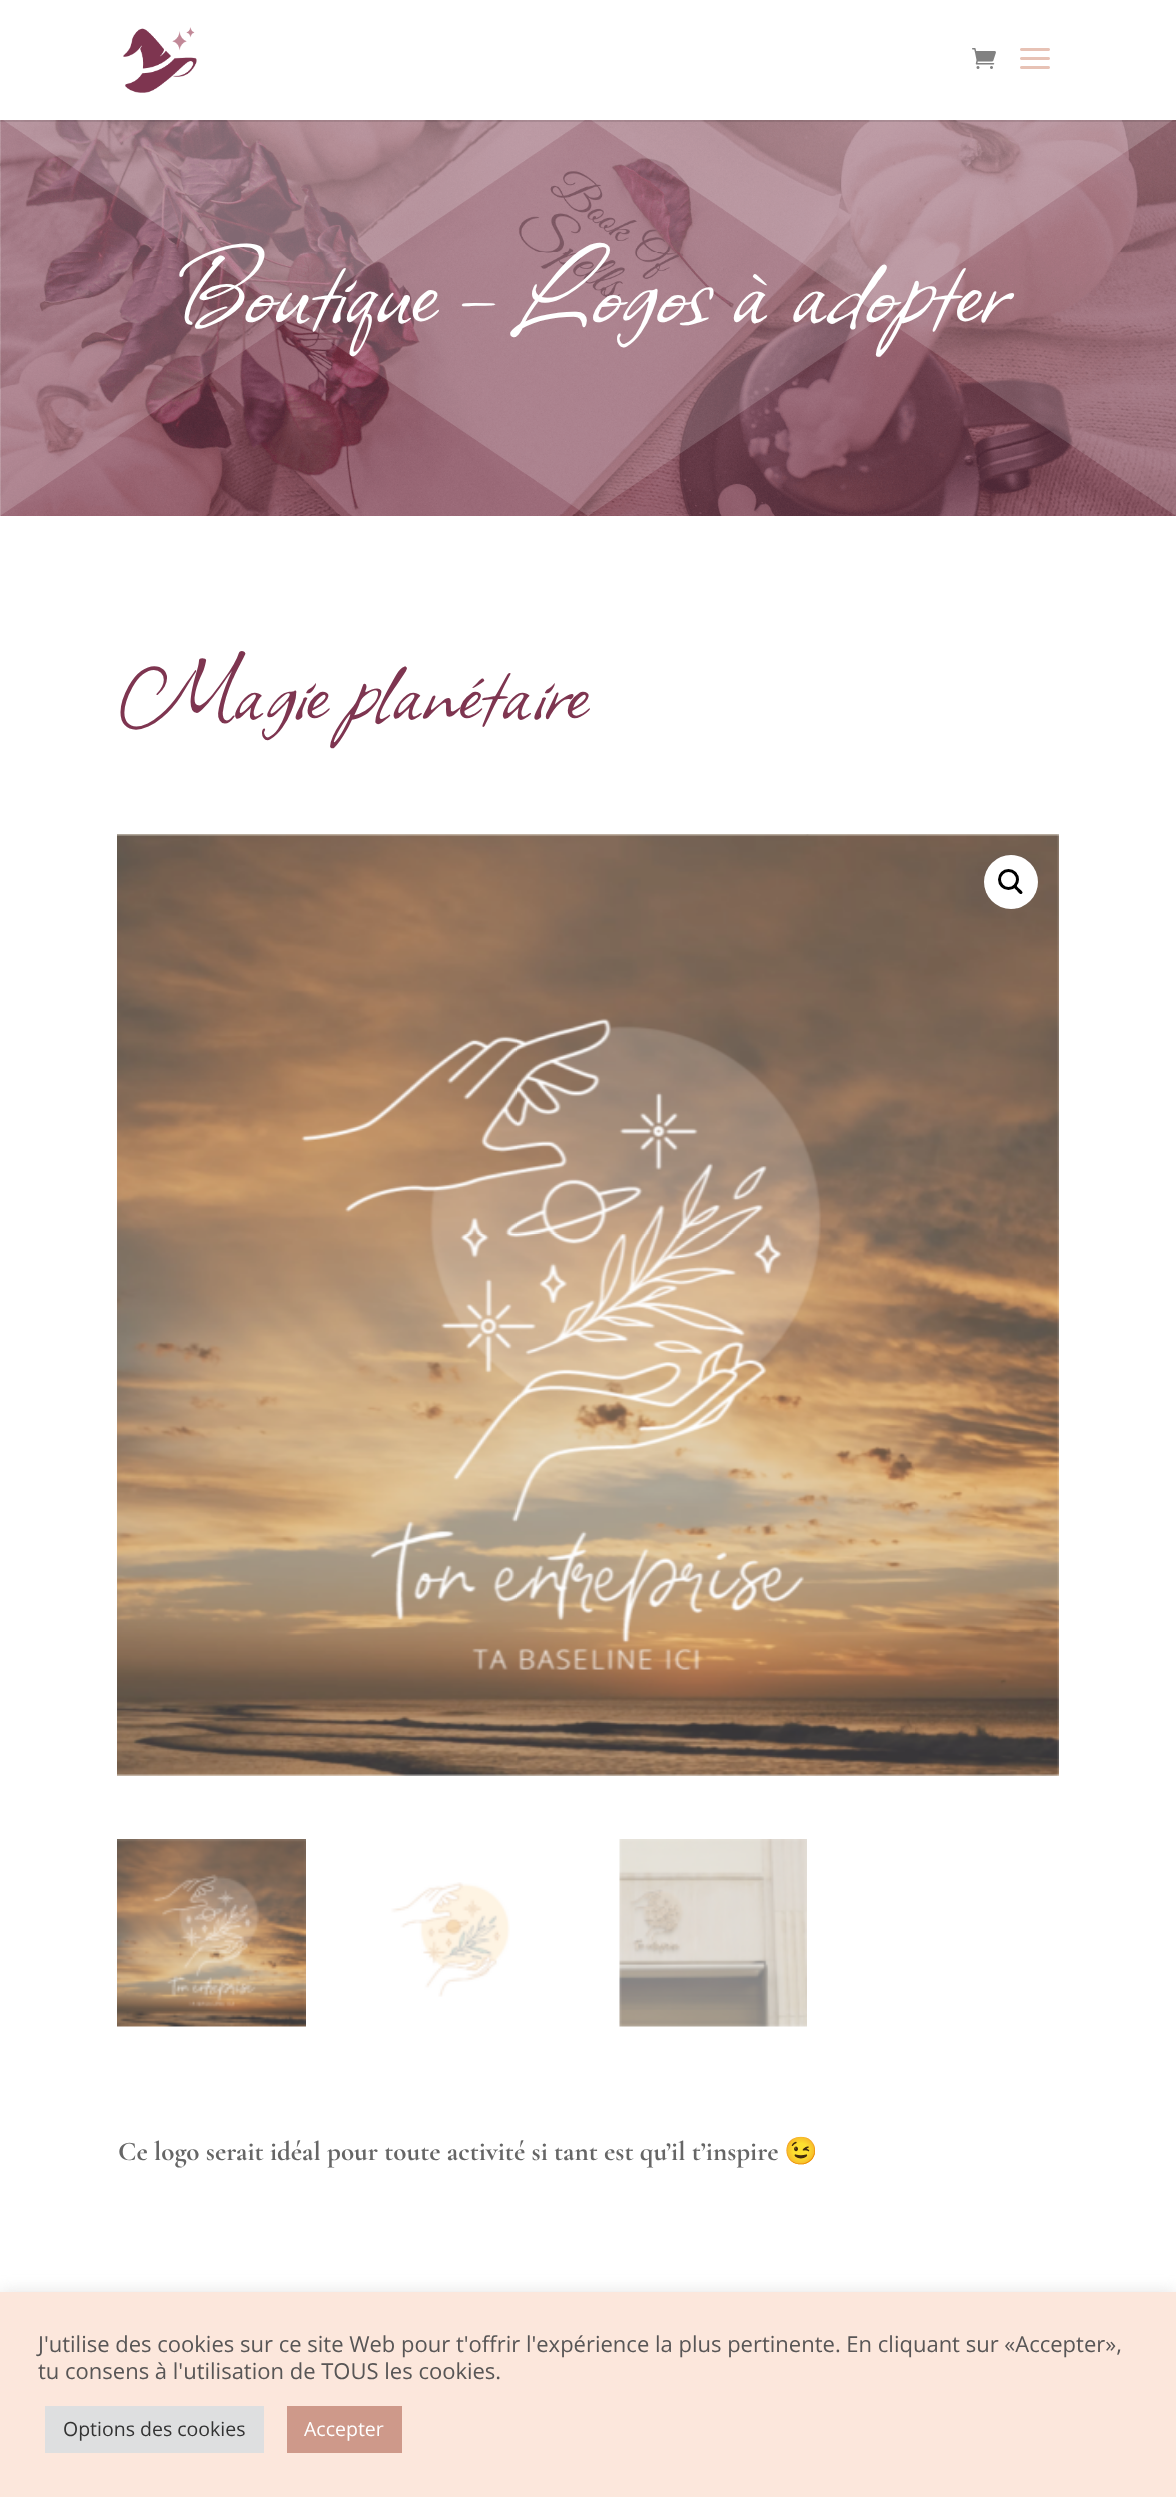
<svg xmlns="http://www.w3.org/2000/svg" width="1176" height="2497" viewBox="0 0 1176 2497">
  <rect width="100%" height="100%" fill="#fff"/>
  <image x="0" y="120" width="1176" height="396" href="img/4.png"/>
  <image x="0" y="120" width="1176" height="396" href="img/5.png"/>
  <path d="M0 120h1176v2H0z" fill="#0000001a"/>
  <image x="123" y="27" width="74" height="66" href="img/1.png"/>
  <image x="972" y="48" width="24" height="21" href="img/2.png"/>
  <image x="1020" y="48" width="30" height="21" href="img/3.png"/>
  <image x="117" y="834" width="942" height="942" href="img/6.png"/>
  <circle cx="1011" cy="882" r="27" fill="#fff"/>
  <circle cx="1008.5" cy="879.5" r="9" fill="none" stroke="#000" stroke-width="3"/>
  <path d="M1013.5 885.5C1015.5 883.5 1018 887.5 1019 888.5C1020 889.5 1024 892 1022 893.5C1020.5 895.5 1017.5 891.5 1017 890.5C1016 889.5 1012 887 1013.5 885.5Z" fill="#000"/>
  <image x="117" y="1839" width="189" height="188" href="img/7.png"/>
  <image x="391" y="1882" width="119" height="115" href="img/8.png"/>
  <image x="619" y="1839" width="188" height="188" href="img/9.png"/>
  <path d="M0 2291h1176v205H0z" fill="#acabab4d" filter="blur(7.5px)"/>
  <path d="M0 2292h1176v205H0z" fill="#fce7dc"/>
  <path d="M45 2406h219v47H45z" fill="#dedfe0"/>
  <path d="M287 2406h115v47H287z" fill="#ce998a"/>
  <text x="171" y="320" font-family="Allison" font-size="127.5" fill="#fff">Boutique – Logos à adopter</text>
  <text x="118" y="717" font-family="Allison" font-size="108" fill="#7e3550">Magie planétaire</text>
  <text x="118" y="2160" font-family="Cormorant Garamond" font-size="27" font-weight="300" fill="#666">Ce logo serait idéal pour toute activité si tant est qu’il t’inspire</text>
  <text x="784" y="2160" font-family="Noto Color Emoji" font-size="27" font-weight="bold" fill="#666">😉</text>
  <g font-family="Open Sans" font-size="22" fill="#585656">
    <text x="38" y="2352">J'utilise des cookies sur ce site Web pour t'offrir l'expérience la plus pertinente. En cliquant sur «Accepter»,</text>
    <text x="38" y="2379">tu consens à l'utilisation de TOUS les cookies.</text>
  </g>
  <text x="63" y="2436" font-family="Open Sans" font-size="19.5" fill="#333">Options des cookies</text>
  <text x="304" y="2436" font-family="Open Sans" font-size="19.5" fill="#fff">Accepter</text>
</svg>
